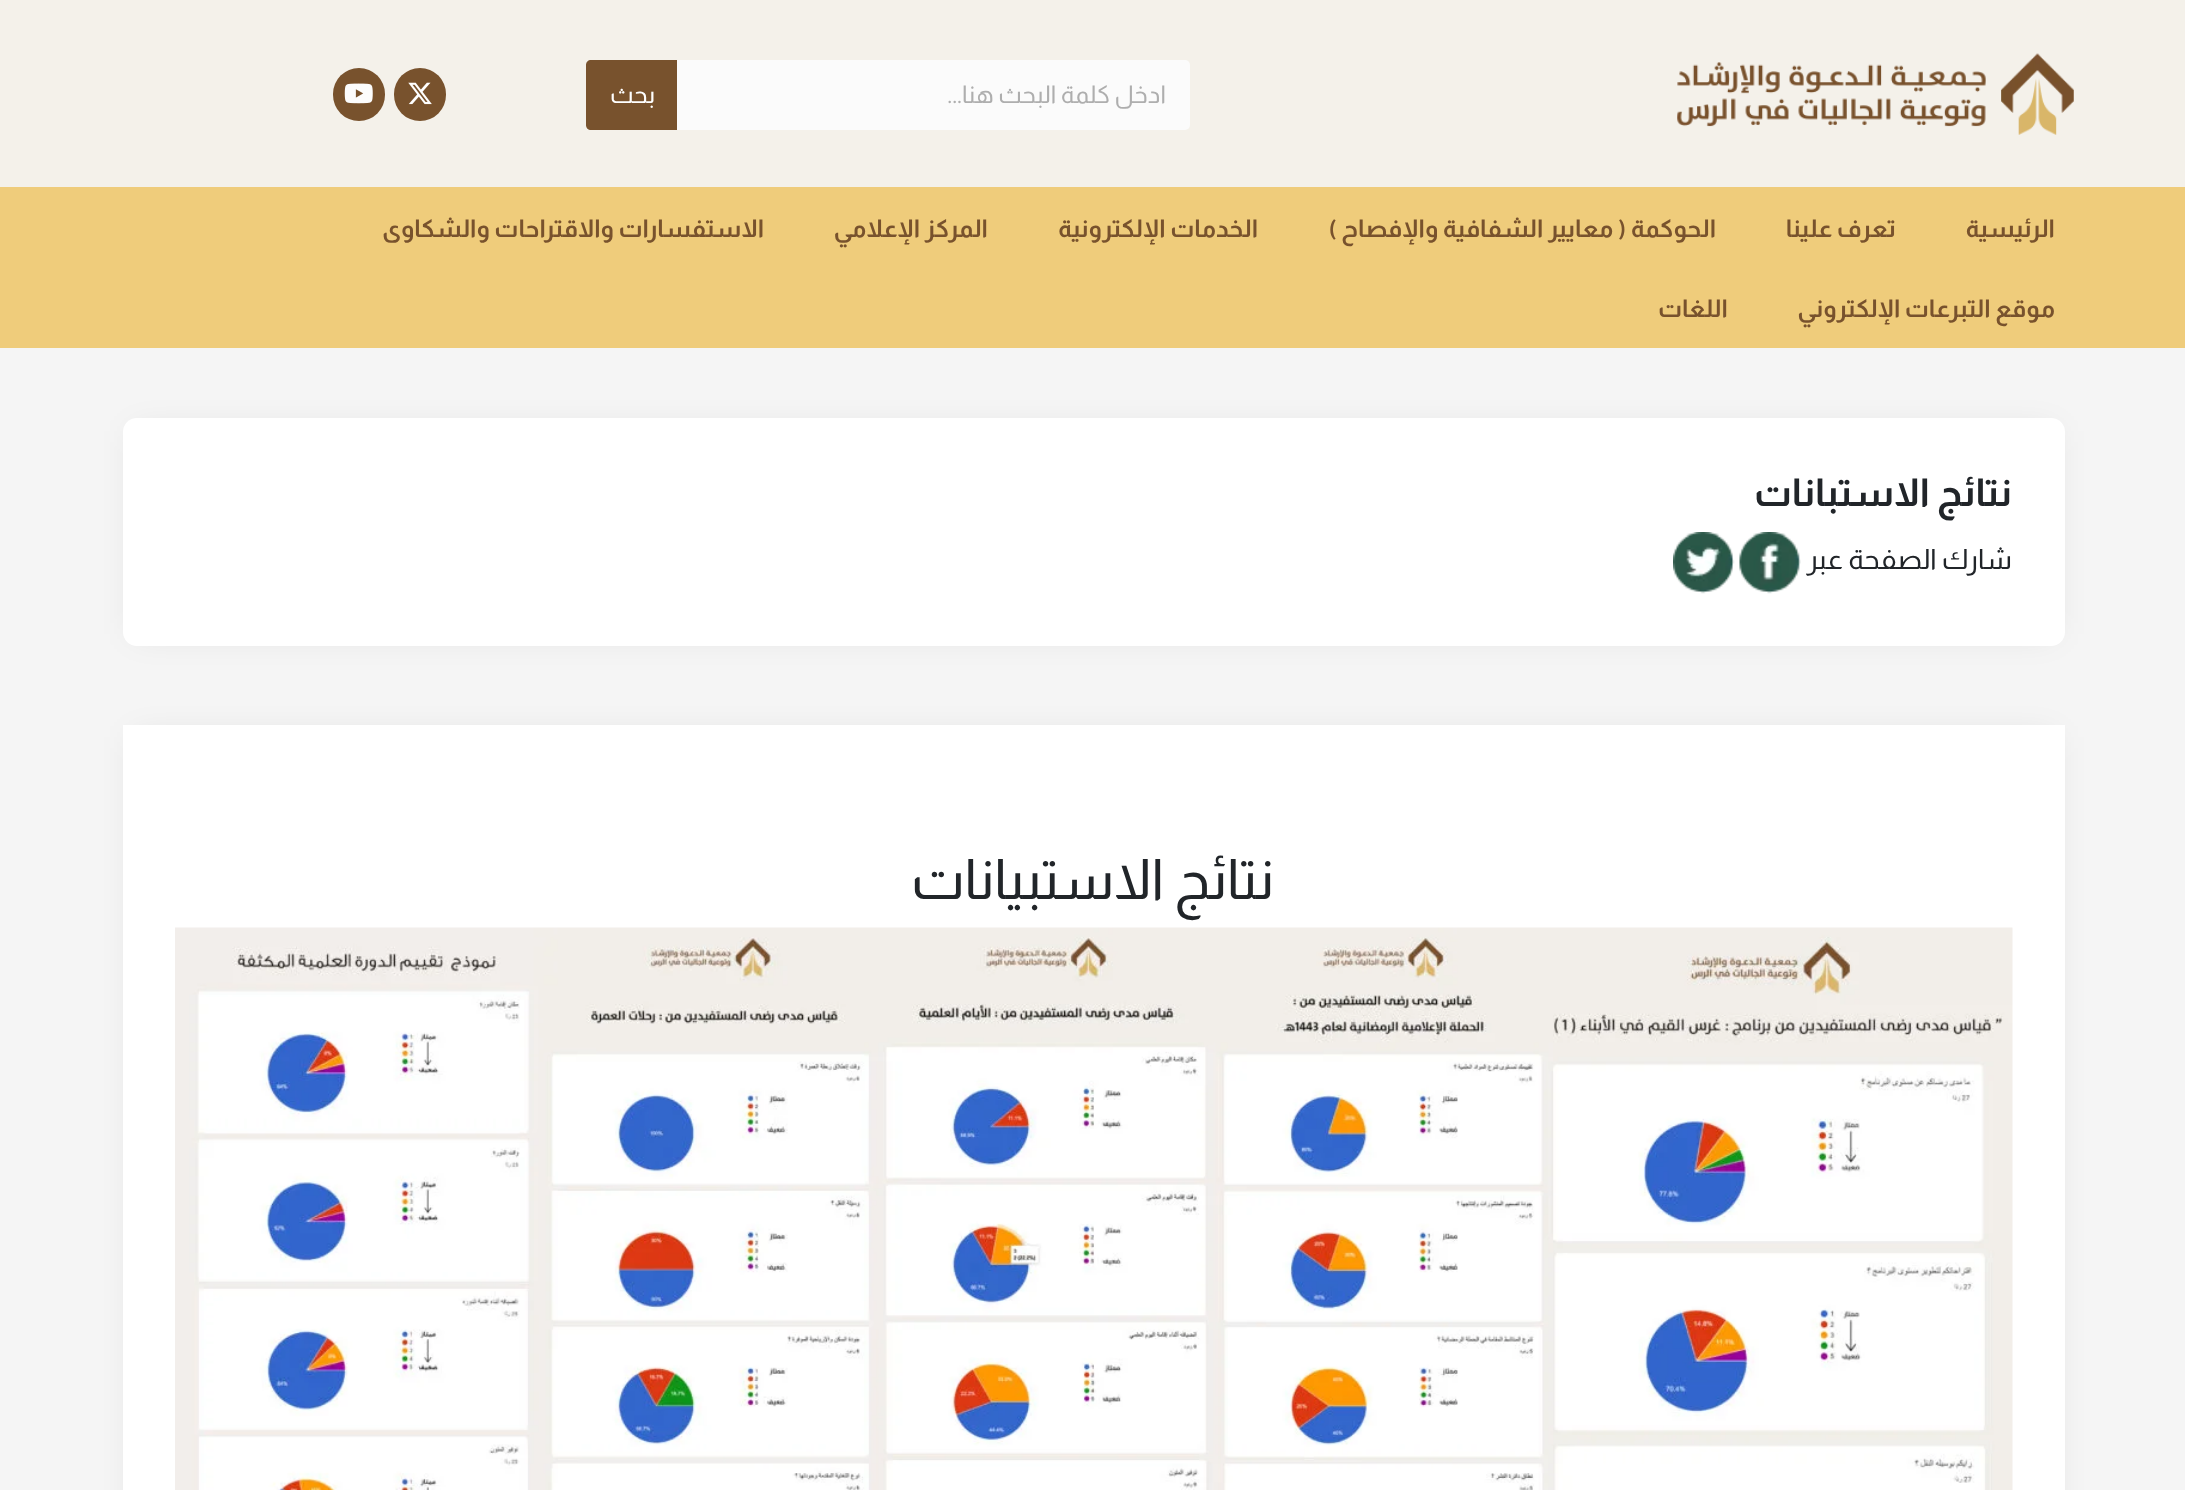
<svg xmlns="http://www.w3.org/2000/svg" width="2185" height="1490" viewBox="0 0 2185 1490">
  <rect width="100%" height="100%" fill="#f5f5f5"/>
  <path d="M0 0h2185v187H0z" fill="#f4f1ea"/>
  <image x="1677" y="53" width="397" height="82" href="img/1.png"/>
  <rect x="586" y="60" width="604" height="70" rx="5" fill="#fbfbfb"/>
  <path d="M591 60H677V130H591C588 130 586 128 586 125V65C586 62 588 60 591 60Z" fill="#78522d"/>
  <rect x="394" y="68" width="52" height="53" rx="26" fill="#78522d"/>
  <image x="408" y="82" width="24" height="23" href="img/2.png"/>
  <rect x="333" y="68" width="52" height="53" rx="26" fill="#78522d"/>
  <image x="344" y="83" width="29" height="21" href="img/3.png"/>
  <path d="M0 187h2185v161H0z" fill="#efcc7b"/>
  <rect x="135" y="431" width="1918" height="203" rx="2" fill="#0000001a" filter="blur(16.5px)"/>
  <rect x="123" y="418" width="1942" height="228" rx="14" fill="#fff"/>
  <image x="1739" y="532" width="62" height="62" href="img/4.png"/>
  <image x="1673" y="532" width="62" height="62" href="img/5.png"/>
  <path d="M135 737h1918v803H135z" fill="#0000001a" filter="blur(16.5px)"/>
  <path d="M123 725h1942v765H123z" fill="#fff"/>
  <image x="175" y="927" width="1838" height="563" href="img/6.png"/>
  <text x="1166" y="103" font-family="Almarai" font-size="24.5" direction="rtl" fill="#aeaeae">ادخل كلمة البحث هنا...</text>
  <text x="655" y="103" font-family="Almarai" font-size="24.5" direction="rtl" fill="#fff">بحث</text>
  <g font-family="Almarai" font-size="24.5" font-weight="bold" direction="rtl" fill="#78522d">
    <text x="2055" y="237">الرئيسية</text>
    <text x="1896" y="237">تعرف علينا</text>
    <text x="1716" y="237">الحوكمة ( معايير الشفافية والإفصاح )</text>
    <text x="1258" y="237">الخدمات الإلكترونية</text>
    <text x="988" y="237">المركز الإعلامي</text>
    <text x="764" y="237">الاستفسارات والاقتراحات والشكاوى</text>
    <text x="2055" y="317">موقع التبرعات الإلكتروني</text>
    <text x="1728" y="317">اللغات</text>
  </g>
  <text x="2012" y="506" font-family="Almarai" font-size="38.5" font-weight="bold" direction="rtl" fill="#212529">نتائج الاستبانات</text>
  <text x="2012" y="569" font-family="Almarai" font-size="28" direction="rtl" fill="#212529">شارك الصفحة عبر</text>
  <text x="1274" y="899" font-family="Almarai" font-size="56" direction="rtl" fill="#212529">نتائج الاستبيانات</text>
</svg>
